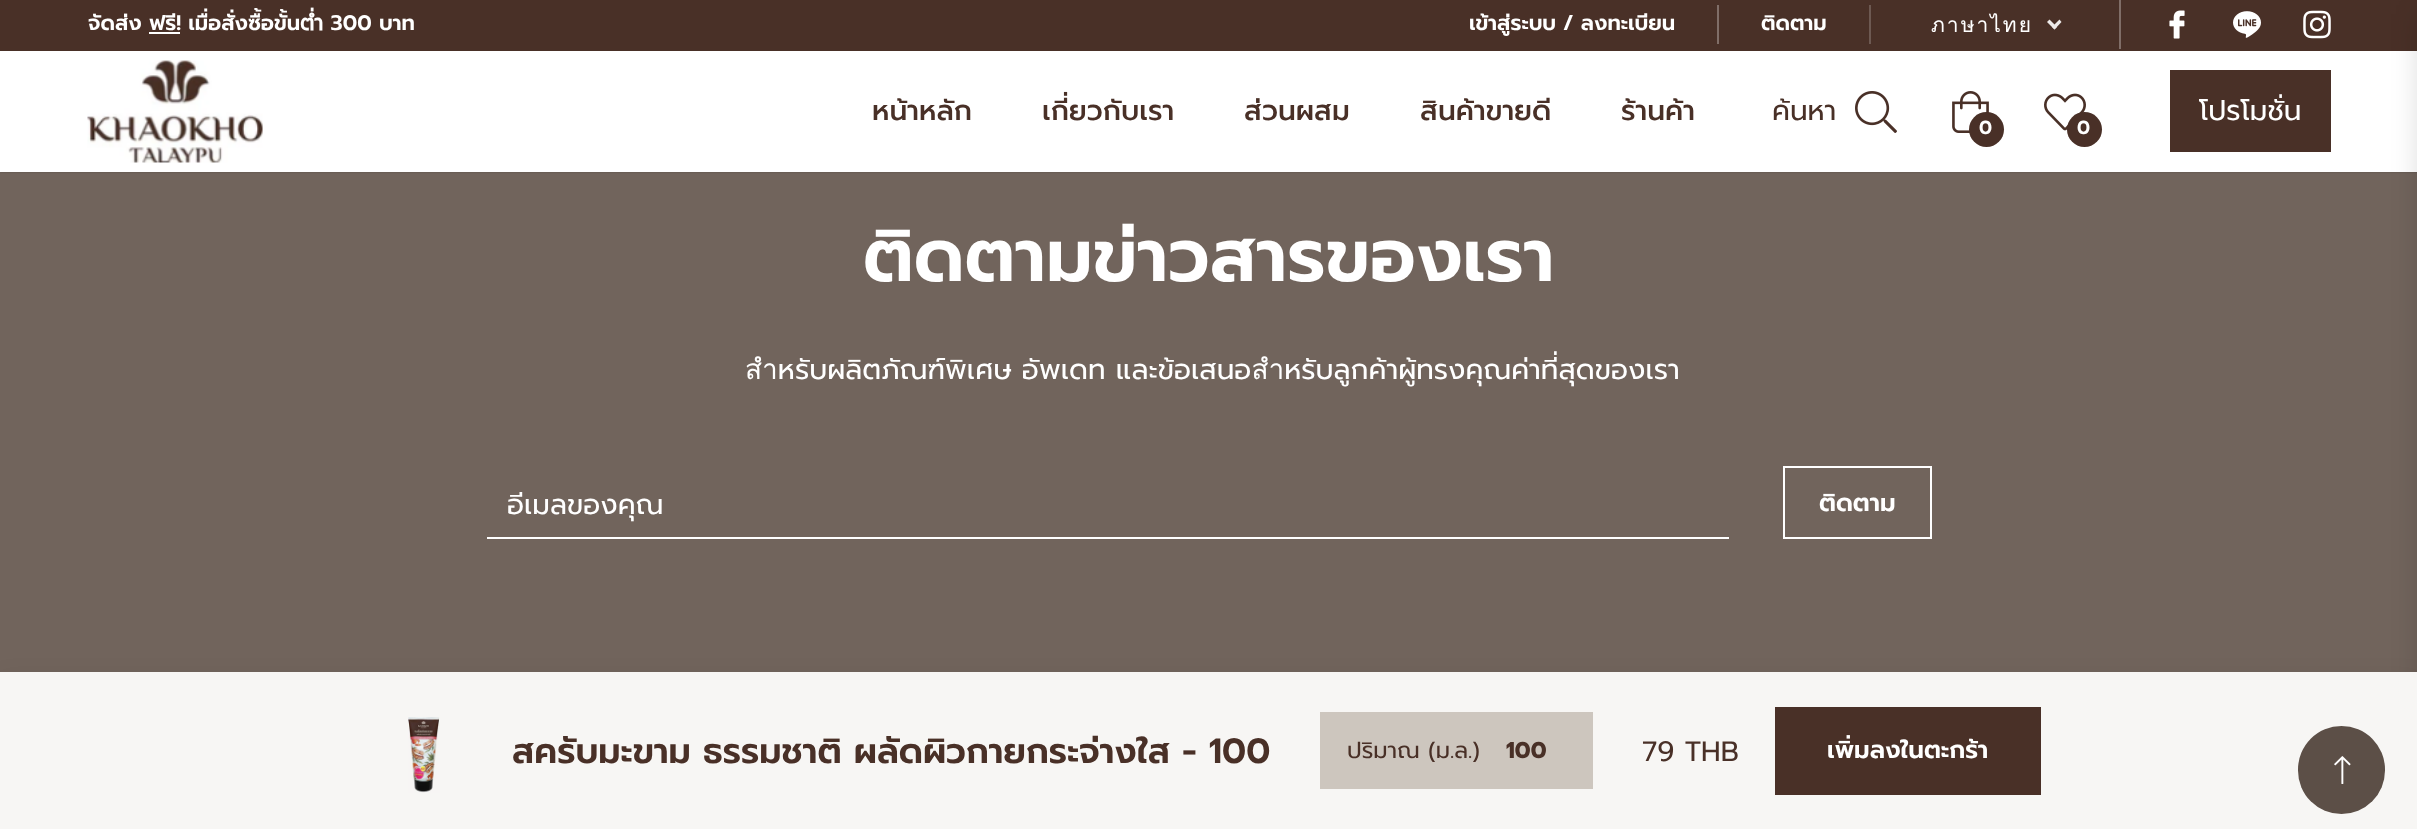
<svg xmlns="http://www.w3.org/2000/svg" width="2417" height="829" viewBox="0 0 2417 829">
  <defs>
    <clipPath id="clip1"><path d="M508 485h1200v42H508z"/></clipPath>
  </defs>
  <rect width="100%" height="100%" fill="#71645c"/>
  <path d="M0 0h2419v172H0z" fill="#00000033" filter="blur(1px)"/>
  <path d="M0 51h2417v121H0z" fill="#fff"/>
  <path d="M0 0h2417v51H0z" fill="#493027"/>
  <path d="M149 32h31v2H149z" fill="#fff"/>
  <path d="M1717 5h2v39H1717z" fill="#806e68"/>
  <path d="M1869 5h2v39H1869z" fill="#6d5952"/>
  <path d="M2119 0h2v49H2119z" fill="#806e68"/>
  <path d="M2059.5 19.5L2061.5 22L2054.5 29.5L2052 27Z" fill="#edeae9"/>
  <path d="M2049.5 19.5L2057 27L2054.5 29.5L2047 22Z" fill="#edeae9"/>
  <image x="2169" y="10" width="16" height="29" href="img/1.png"/>
  <image x="2233" y="11" width="28" height="27" href="img/2.png"/>
  <image x="2303" y="10" width="28" height="29" href="img/3.png"/>
  <image x="87" y="60" width="176" height="103" href="img/4.png"/>
  <image x="1855" y="91" width="42" height="42" href="img/5.png"/>
  <path d="M2170 70h161v82H2170z" fill="#493027"/>
  <image x="1952" y="91" width="37" height="42" href="img/6.png"/>
  <circle cx="1986.5" cy="129.5" r="17.5" fill="#493027"/>
  <path d="M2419 14h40v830H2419z" fill="#00000026" filter="blur(14px)"/>
  <image x="2044" y="93" width="42" height="38" href="img/7.png"/>
  <circle cx="2084.5" cy="129.5" r="17.5" fill="#493027"/>
  <path d="M487 537h1242v2H487z" fill="#fff"/>
  <path d="M1784 467h147v71H1784z" fill="none" stroke="#fff" stroke-width="2"/>
  <path d="M0 686h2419v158H0z" fill="#00000026" filter="blur(14px)"/>
  <path d="M0 672h2417v157H0z" fill="#f7f6f4"/>
  <image x="408" y="717" width="32" height="76" href="img/8.png"/>
  <path d="M1320 712h273v77H1320z" fill="#cdc6be"/>
  <path d="M1775 707h266v88H1775z" fill="#493027"/>
  <rect x="2298" y="726" width="87" height="88" rx="43.5" fill="#5c4f47"/>
  <image x="2334" y="756" width="17" height="28" href="img/9.png"/>
  <g font-family="Prompt" font-size="21" font-weight="600" fill="#fff">
    <text x="88" y="30">จัดส่ง ฟรี! เมื่อสั่งซื้อขั้นต่ำ 300 บาท</text>
    <text x="1469" y="30">เข้าสู่ระบบ</text>
    <text x="1563" y="30">/ ลงทะเบียน</text>
    <text x="1761" y="30">ติดตาม</text>
  </g>
  <text x="1931" y="32" font-family="Loma" font-size="21" letter-spacing="2" fill="#fff">ภาษาไทย</text>
  <g font-family="Prompt" font-size="28" font-weight="500" fill="#493027">
    <text x="872" y="120">หน้าหลัก</text>
    <text x="1042" y="120">เกี่ยวกับเรา</text>
    <text x="1244" y="120">ส่วนผสม</text>
    <text x="1420" y="120">สินค้าขายดี</text>
    <text x="1621" y="120">ร้านค้า</text>
  </g>
  <text x="1772" y="120" font-family="Prompt" font-size="28" fill="#493027">ค้นหา</text>
  <text x="2199" y="120" font-family="Prompt" font-size="28" fill="#fff">โปรโมชั่น</text>
  <g font-family="Prompt" font-size="19" font-weight="600" fill="#fff">
    <text x="1979" y="134">0</text>
    <text x="2077" y="134">0</text>
  </g>
  <text x="863" y="281" font-family="Prompt" font-size="73.5" font-weight="600" fill="#fff">ติดตามข่าวสารของเรา</text>
  <text x="745" y="379" font-family="Prompt" font-size="28" fill="#fff">สำหรับผลิตภัณฑ์พิเศษ อัพเดท และข้อเสนอสำหรับลูกค้าผู้ทรงคุณค่าที่สุดของเรา</text>
  <g clip-path="url(#clip1)">
    <text x="507" y="514" font-family="Prompt" font-size="28" fill="#fff">อีเมลของคุณ</text>
  </g>
  <text x="1819" y="511" font-family="Prompt" font-size="24.5" font-weight="600" fill="#fff">ติดตาม</text>
  <text x="512" y="763" font-family="Prompt" font-size="35" font-weight="600" fill="#493027">สครับมะขาม ธรรมชาติ ผลัดผิวกายกระจ่างใส - 100</text>
  <text x="1347" y="758" font-family="Prompt" font-size="22.75" fill="#493027">ปริมาณ (ม.ล.)</text>
  <text x="1506" y="758" font-family="Prompt" font-size="22.75" font-weight="bold" fill="#493027">100</text>
  <text x="1642" y="761" font-family="Prompt" font-size="28" fill="#493027">79 THB</text>
  <text x="1827" y="758" font-family="Prompt" font-size="24.5" font-weight="600" fill="#fff">เพิ่มลงในตะกร้า</text>
</svg>
